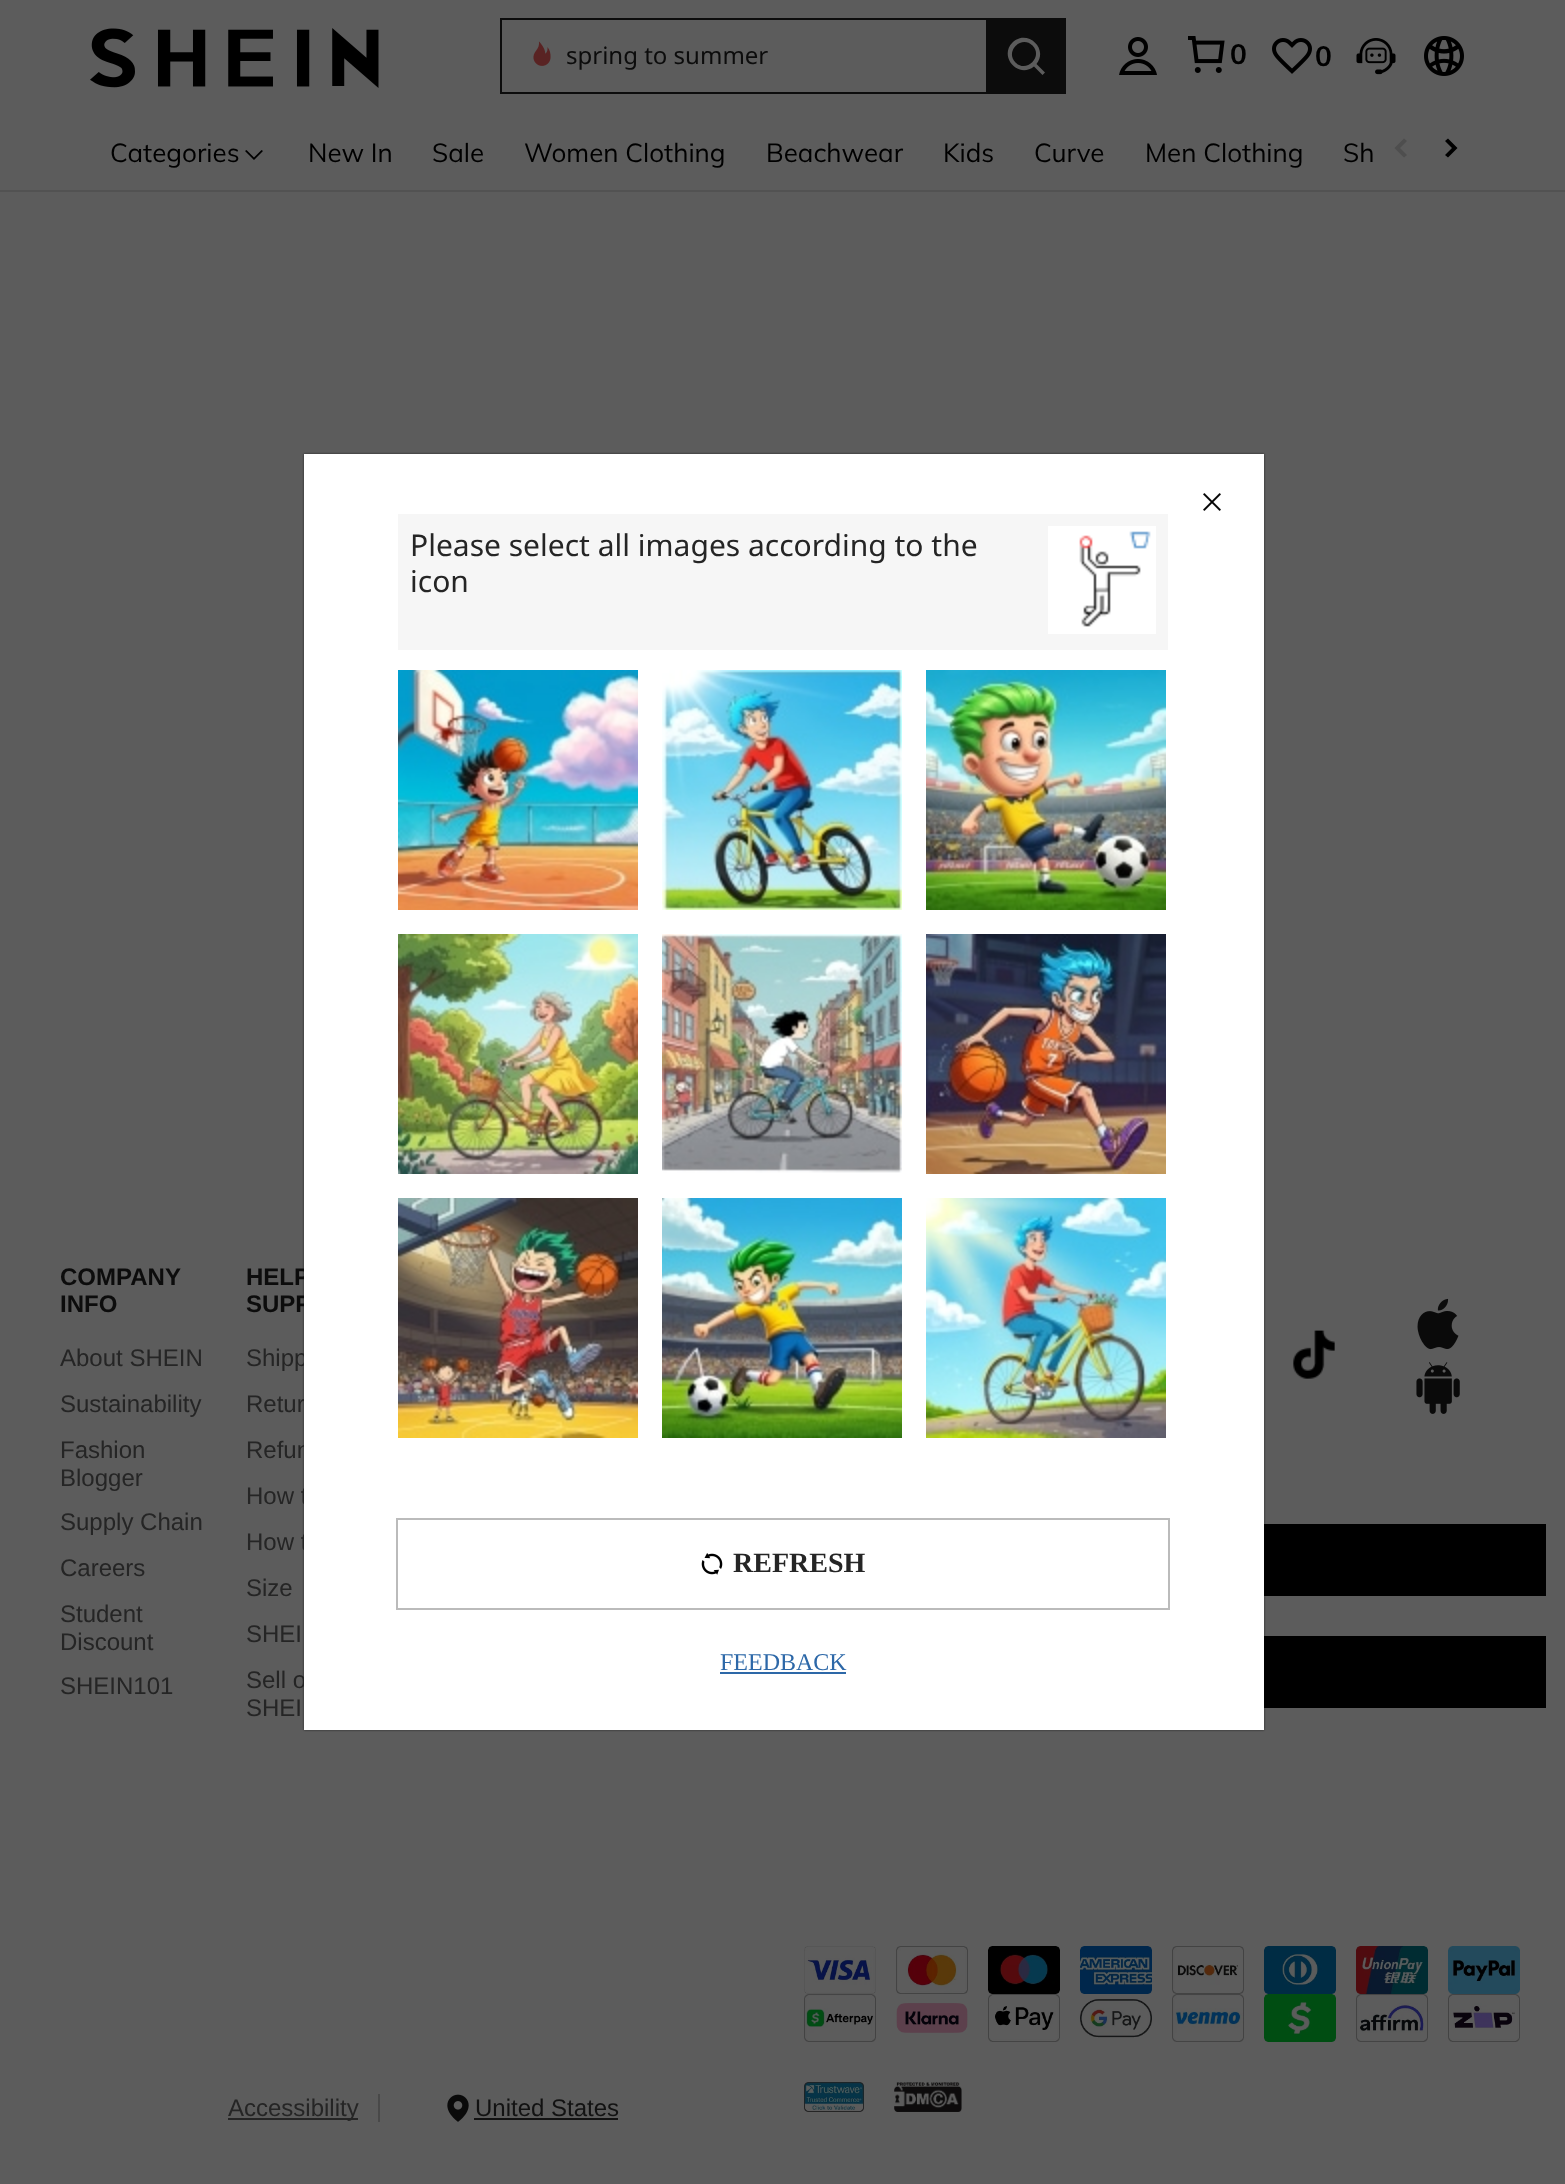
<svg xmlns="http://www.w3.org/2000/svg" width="1565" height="2184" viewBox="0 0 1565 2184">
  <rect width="100%" height="100%" fill="#5c5c5c"/>
  <image x="90" y="28" width="289" height="60" href="img/1.png"/>
  <path d="M500 18h486v2H500z" fill="#0c0c0c"/>
  <path d="M500 92h486v2H500z" fill="#0c0c0c"/>
  <path d="M500 18h2v76H500z" fill="#0c0c0c"/>
  <image x="533" y="41" width="18" height="25" href="img/2.png"/>
  <path d="M986 18h80v76H986z" fill="#0c0c0c"/>
  <path d="M1012.5 42.5C1026.5 28.5 1049 48 1036.5 64L1045 72.5L1042.5 75L1034 66.5C1018 79 998.5 56.5 1012.5 42.5ZM1032.5 45.5C1021.5 34.5 1004.5 51.5 1015.5 62.5C1026.5 73.5 1043.5 56.5 1032.5 45.5Z" fill="#5c5c5c" fill-rule="evenodd"/>
  <image x="1119" y="37" width="38" height="38" href="img/3.png"/>
  <image x="1188" y="36" width="37" height="37" href="img/4.png"/>
  <image x="1272" y="38" width="40" height="36" href="img/5.png"/>
  <image x="1356" y="38" width="40" height="37" href="img/6.png"/>
  <image x="1424" y="36" width="40" height="40" href="img/7.png"/>
  <path d="M0 190h1565v2H0z" fill="#525252"/>
  <path d="M261.5 150L263 151L254 160L245 151L246.5 150L254 157.5Z" fill="#000"/>
  <path d="M1404 138.5L1407 141L1400 148L1407 155L1404 157.5L1394.5 148Z" fill="#4e4e4e" fill-rule="evenodd"/>
  <path d="M1445 141L1448 138.5L1457.5 148L1448 157.5L1445 155L1452 148Z" fill="#000" fill-rule="evenodd"/>
  <image x="1293" y="1330" width="42" height="49" href="img/8.png"/>
  <image x="1417" y="1298" width="42" height="52" href="img/9.png"/>
  <image x="1416" y="1362" width="44" height="52" href="img/10.png"/>
  <path d="M1264 1524h282v72H1264z" fill="#000"/>
  <path d="M1264 1636h282v72H1264z" fill="#000"/>
  <image x="804" y="1946" width="72" height="48" href="img/11.png"/>
  <image x="896" y="1946" width="72" height="48" href="img/12.png"/>
  <image x="988" y="1946" width="72" height="48" href="img/13.png"/>
  <image x="1080" y="1946" width="72" height="48" href="img/14.png"/>
  <image x="1172" y="1946" width="72" height="48" href="img/15.png"/>
  <image x="1264" y="1946" width="72" height="48" href="img/16.png"/>
  <image x="1356" y="1946" width="72" height="48" href="img/17.png"/>
  <image x="1448" y="1946" width="72" height="48" href="img/18.png"/>
  <image x="804" y="1994" width="72" height="48" href="img/19.png"/>
  <image x="896" y="2003" width="72" height="30" href="img/20.png"/>
  <image x="988" y="1994" width="72" height="48" href="img/21.png"/>
  <image x="1080" y="1999" width="72" height="39" href="img/22.png"/>
  <image x="1172" y="1994" width="72" height="48" href="img/23.png"/>
  <image x="1264" y="1994" width="72" height="48" href="img/24.png"/>
  <image x="1356" y="1994" width="72" height="48" href="img/25.png"/>
  <image x="1448" y="1994" width="72" height="48" href="img/26.png"/>
  <path d="M378 2094h2v28H378z" fill="#494949"/>
  <path d="M228 2118h130v2H228z" fill="#252525"/>
  <image x="447" y="2094" width="22" height="28" href="img/27.png"/>
  <path d="M474 2118h144v2H474z" fill="#121212"/>
  <image x="804" y="2082" width="60" height="30" href="img/28.png"/>
  <image x="894" y="2082" width="68" height="30" href="img/29.png"/>
  <path d="M304 454h960v1276H304z" fill="#0000004d" filter="blur(1px)"/>
  <path d="M304 454h960v1276H304z" fill="#0000004d" filter="blur(1px)"/>
  <text x="566" y="64" font-family="Noto Sans" font-size="24" fill="#0c0c0c">spring to summer</text>
  <g font-family="Muli" font-size="28" font-weight="bold" fill="#000">
    <text x="1230" y="64">0</text>
    <text x="1315" y="66">0</text>
  </g>
  <g font-family="Muli" font-size="26" fill="#000">
    <text x="110" y="162">Categories</text>
    <text x="308" y="162">New In</text>
    <text x="432" y="162">Sale</text>
    <text x="524" y="162">Women Clothing</text>
    <text x="766" y="162">Beachwear</text>
    <text x="943" y="162">Kids</text>
    <text x="1034" y="162">Curve</text>
    <text x="1145" y="162">Men Clothing</text>
    <text x="1343" y="162">Sh</text>
  </g>
  <g font-family="Liberation Sans" font-size="24" font-weight="bold" fill="#0c0c0c">
    <text x="60" y="1285">COMPANY</text>
    <text x="60" y="1312">INFO</text>
  </g>
  <g font-family="Liberation Sans" font-size="24" fill="#252525">
    <text x="60" y="1366">About SHEIN</text>
    <text x="60" y="1412">Sustainability</text>
    <text x="60" y="1458">Fashion</text>
    <text x="60" y="1486">Blogger</text>
    <text x="60" y="1530">Supply Chain</text>
    <text x="60" y="1576">Careers</text>
    <text x="60" y="1622">Student</text>
    <text x="60" y="1650">Discount</text>
    <text x="60" y="1694">SHEIN101</text>
  </g>
  <g font-family="Liberation Sans" font-size="24" font-weight="bold" fill="#0c0c0c">
    <text x="246" y="1285">HELP</text>
    <text x="246" y="1312">SUPP</text>
  </g>
  <g font-family="Liberation Sans" font-size="24" fill="#252525">
    <text x="246" y="1366">Shipp</text>
    <text x="246" y="1412">Retur</text>
    <text x="246" y="1458">Refun</text>
    <text x="246" y="1504">How t</text>
    <text x="246" y="1550">How t</text>
    <text x="246" y="1596">Size</text>
    <text x="246" y="1642">SHEI</text>
    <text x="246" y="1688">Sell o</text>
    <text x="246" y="1716">SHEI</text>
    <text x="228" y="2116">Accessibility</text>
  </g>
  <text x="475" y="2116" font-family="Liberation Sans" font-size="24" fill="#121212">United States</text>
  <path d="M304 454h960v1276H304z" fill="#fff"/>
  <image x="1203" y="493" width="18" height="18" href="img/30.png"/>
  <path d="M398 514h770v136H398z" fill="#f6f6f6"/>
  <g font-family="Noto Sans" font-size="30" fill="#252525">
    <text x="410" y="556">Please select all images according to the</text>
    <text x="410" y="592">icon</text>
  </g>
  <path d="M1048 526h108v108H1048z" fill="#fff"/>
  <image x="1079" y="531" width="72" height="96" href="img/31.png"/>
  <image x="398" y="670" width="240" height="240" href="img/32.png"/>
  <image x="662" y="670" width="240" height="240" href="img/33.png"/>
  <image x="926" y="670" width="240" height="240" href="img/34.png"/>
  <image x="398" y="934" width="240" height="240" href="img/35.png"/>
  <image x="662" y="934" width="240" height="239" href="img/36.png"/>
  <image x="926" y="934" width="240" height="240" href="img/37.png"/>
  <image x="398" y="1198" width="240" height="240" href="img/38.png"/>
  <image x="662" y="1198" width="240" height="240" href="img/39.png"/>
  <image x="926" y="1198" width="240" height="240" href="img/40.png"/>
  <path d="M397 1519h772v90H397z" fill="none" stroke="#bbb" stroke-width="2"/>
  <image x="701" y="1553" width="22" height="22" href="img/41.png"/>
  <text x="733" y="1572" font-family="Liberation Serif" font-size="28" font-weight="bold" fill="#252525">REFRESH</text>
  <text x="720" y="1670" font-family="Liberation Serif" font-size="24" fill="#2d68a8">FEEDBACK</text>
  <path d="M720 1672h126v2H720z" fill="#2d68a8"/>
</svg>
